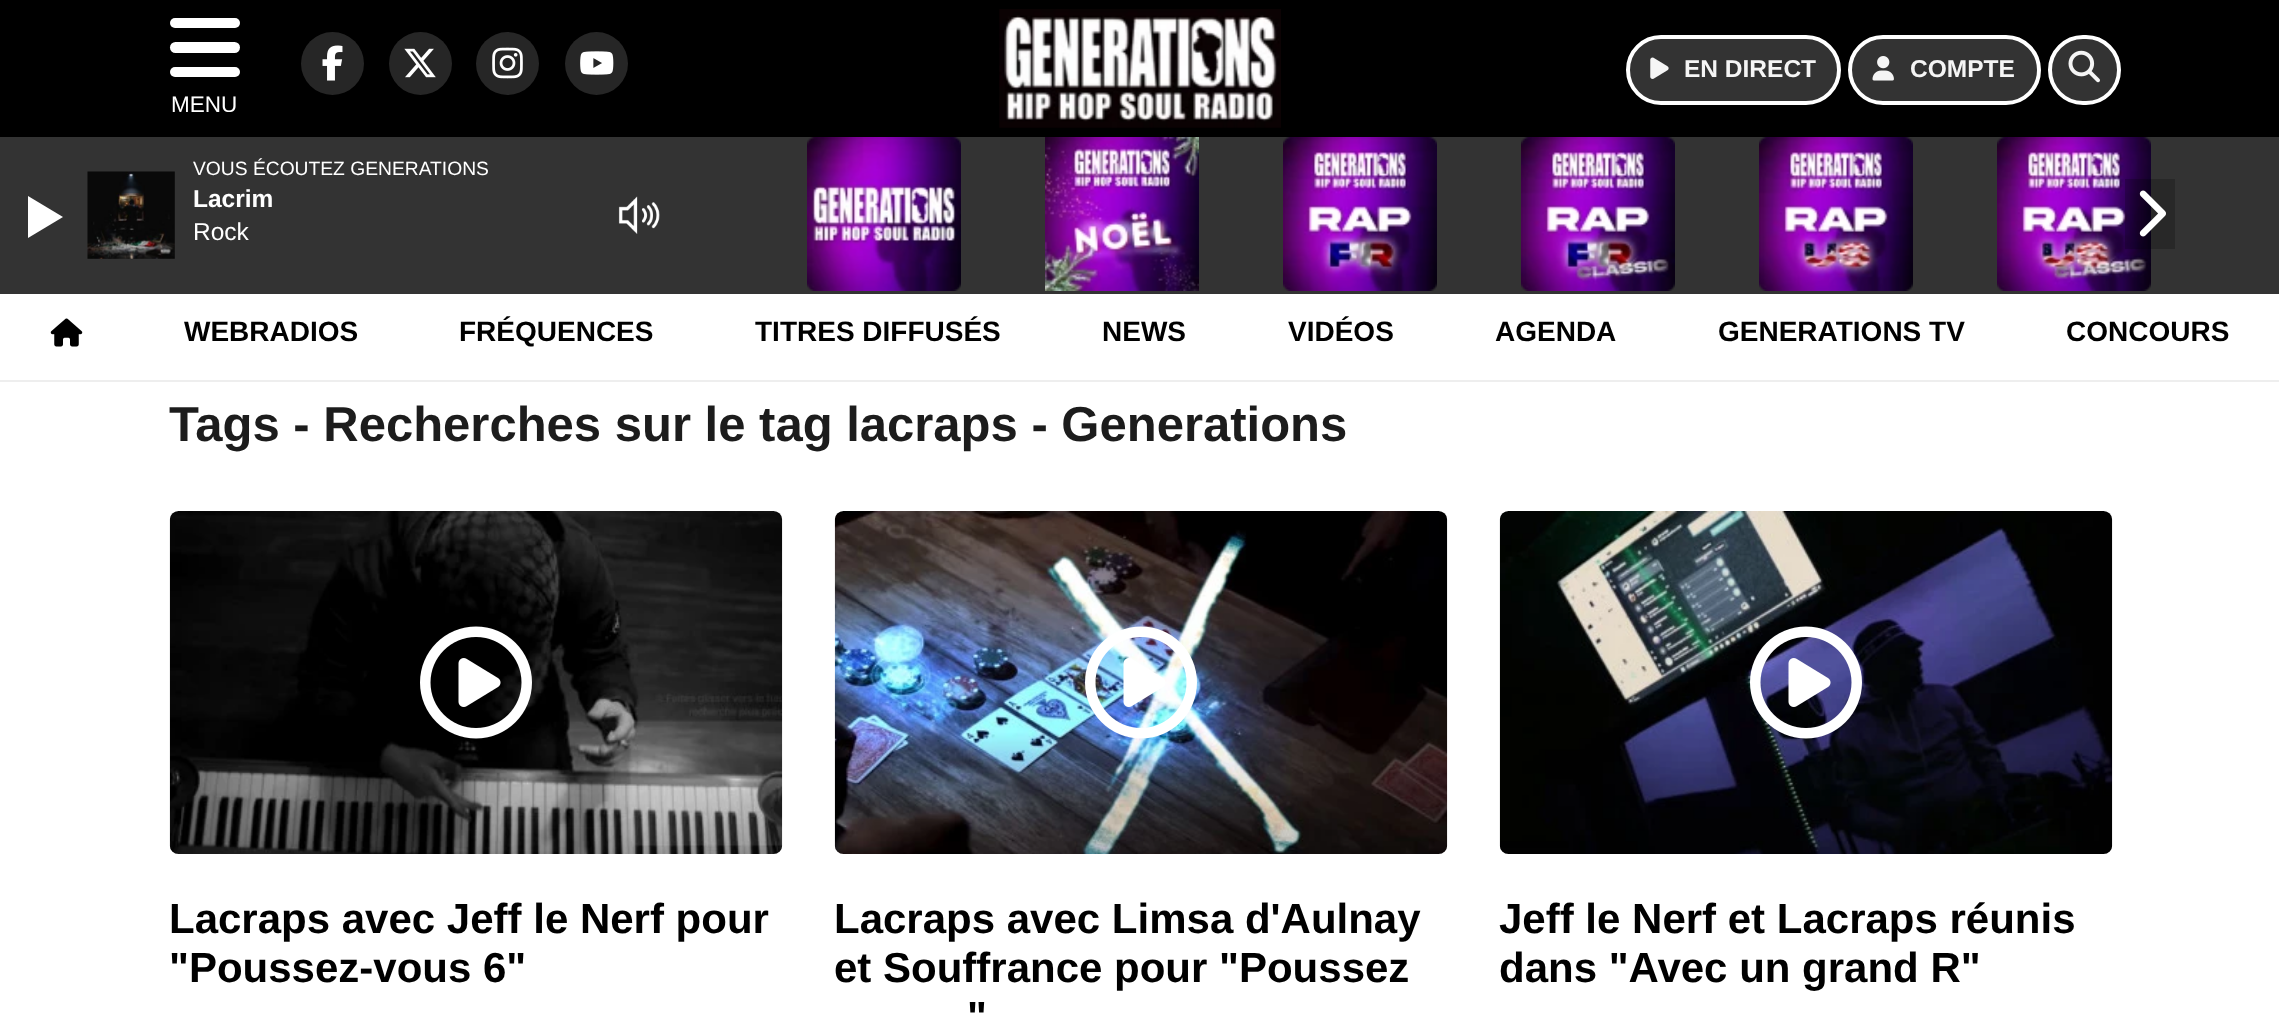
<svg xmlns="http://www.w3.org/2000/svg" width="2279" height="1023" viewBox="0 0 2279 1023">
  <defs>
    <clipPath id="clip1"><path d="M170 18h70v94H170z"/></clipPath>
  </defs>
  <rect width="100%" height="100%" fill="#fff"/>
  <path d="M0 0h2279v137H0z" fill="#000"/>
  <circle cx="332.5" cy="63.5" r="31.5" fill="#262626"/>
  <image x="322" y="45" width="21" height="36" href="img/1.png"/>
  <circle cx="420.5" cy="63.5" r="31.5" fill="#262626"/>
  <image x="404" y="48" width="32" height="30" href="img/2.png"/>
  <circle cx="507.5" cy="63.5" r="31.5" fill="#262626"/>
  <image x="492" y="47" width="31" height="32" href="img/3.png"/>
  <circle cx="596.5" cy="63.5" r="31.5" fill="#262626"/>
  <image x="580" y="51" width="34" height="24" href="img/4.png"/>
  <image x="999" y="9" width="282" height="119" href="img/5.png"/>
  <rect x="1628" y="37" width="211" height="66" rx="33" fill="#333" stroke="#fff" stroke-width="4"/>
  <image x="1650" y="57" width="19" height="22" href="img/6.png"/>
  <rect x="1850" y="37" width="189" height="66" rx="33" fill="#333" stroke="#fff" stroke-width="4"/>
  <image x="1872" y="56" width="22" height="25" href="img/7.png"/>
  <rect x="2050" y="37" width="69" height="66" rx="33" fill="#333" stroke="#fff" stroke-width="4"/>
  <image x="2068" y="50" width="32" height="33" href="img/8.png"/>
  <rect x="170" y="18" width="70" height="10" rx="5" fill="#fff"/>
  <rect x="170" y="42" width="70" height="11" rx="5.5" fill="#fff"/>
  <rect x="170" y="67" width="70" height="10" rx="5" fill="#fff"/>
  <path d="M0 380h2279v2H0z" fill="#eee"/>
  <image x="50" y="318" width="33" height="29" href="img/9.png"/>
  <image x="169" y="511" width="614" height="343" href="img/10.png"/>
  <image x="420" y="626" width="112" height="113" href="img/11.png"/>
  <image x="834" y="511" width="614" height="343" href="img/12.png"/>
  <image x="1085" y="626" width="112" height="113" href="img/13.png"/>
  <image x="1499" y="511" width="614" height="343" href="img/14.png"/>
  <image x="1750" y="626" width="112" height="113" href="img/15.png"/>
  <path d="M0 137h2279v157H0z" fill="#333"/>
  <image x="87" y="171" width="88" height="88" href="img/16.png"/>
  <path d="M28 238V196L63 217Z" fill="#fff"/>
  <image x="618" y="196" width="42" height="38" href="img/17.png"/>
  <image x="807" y="137" width="154" height="154" href="img/18.png"/>
  <image x="1045" y="137" width="154" height="154" href="img/19.png"/>
  <image x="1283" y="137" width="154" height="154" href="img/20.png"/>
  <image x="1521" y="137" width="154" height="154" href="img/21.png"/>
  <image x="1759" y="137" width="154" height="154" href="img/22.png"/>
  <image x="1997" y="137" width="154" height="154" href="img/23.png"/>
  <path d="M2125 179h50v70H2125z" fill="#00000033"/>
  <image x="2139" y="190" width="27" height="47" href="img/24.png"/>
  <g font-family="Liberation Sans" font-size="24.5" font-weight="bold" fill="#f5f5f5">
    <text x="1684" y="77">EN DIRECT</text>
    <text x="1910" y="77">COMPTE</text>
  </g>
  <g clip-path="url(#clip1)">
    <text x="171" y="112" font-family="Liberation Sans" font-size="22.5" fill="#fff">MENU</text>
  </g>
  <g font-family="Liberation Sans" font-size="28" font-weight="bold" fill="#000">
    <text x="184" y="341">WEBRADIOS</text>
    <text x="459" y="341">FRÉQUENCES</text>
    <text x="755" y="341">TITRES DIFFUSÉS</text>
    <text x="1102" y="341">NEWS</text>
    <text x="1288" y="341">VIDÉOS</text>
    <text x="1495" y="341">AGENDA</text>
    <text x="1718" y="341">GENERATIONS TV</text>
    <text x="2066" y="341">CONCOURS</text>
  </g>
  <text x="169" y="441" font-family="Liberation Sans" font-size="49" font-weight="bold" fill="#1c1c1c">Tags - Recherches sur le tag lacraps - Generations</text>
  <g font-family="Liberation Sans" font-size="42" font-weight="bold" fill="#000">
    <text x="169" y="933">Lacraps avec Jeff le Nerf pour</text>
    <text x="169" y="982">"Poussez-vous 6"</text>
    <text x="834" y="933">Lacraps avec Limsa d'Aulnay</text>
    <text x="834" y="982">et Souffrance pour "Poussez</text>
    <text x="967" y="1031">"</text>
    <text x="1499" y="933">Jeff le Nerf et Lacraps réunis</text>
    <text x="1499" y="982">dans "Avec un grand R"</text>
  </g>
  <text x="193" y="175" font-family="Liberation Sans" font-size="19.25" fill="#fff">VOUS ÉCOUTEZ GENERATIONS</text>
  <text x="193" y="207" font-family="Liberation Sans" font-size="24.5" font-weight="bold" fill="#fff">Lacrim</text>
  <text x="193" y="240" font-family="Liberation Sans" font-size="24.5" fill="#fff">Rock</text>
</svg>
